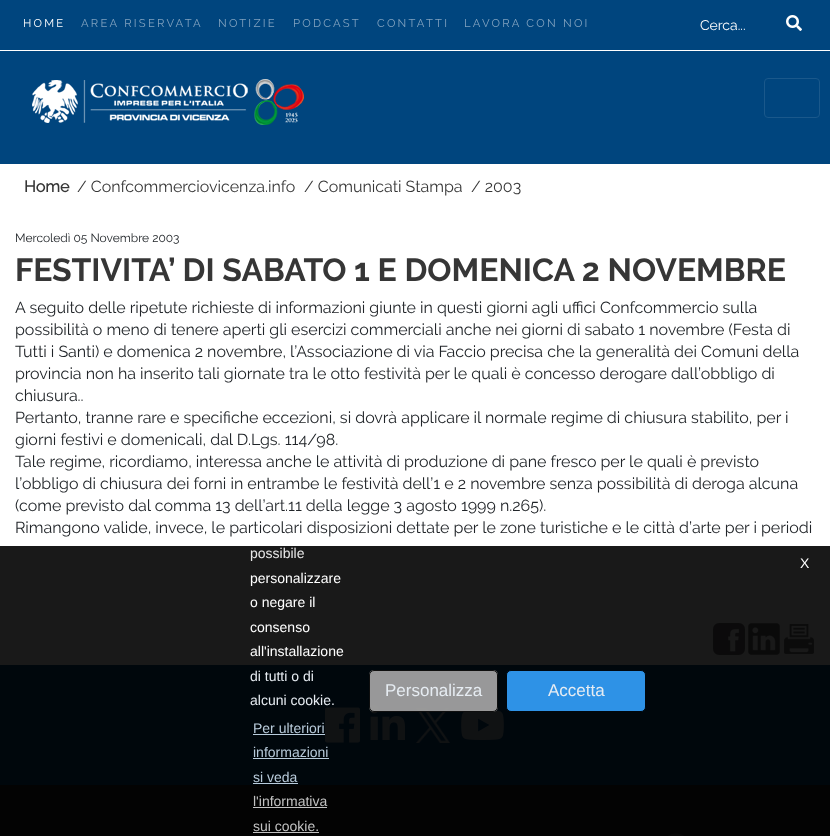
<svg xmlns="http://www.w3.org/2000/svg" width="830" height="836" viewBox="0 0 830 836">
  <rect width="100%" height="100%" fill="#00457e"/>
  <image x="786" y="15" width="16" height="16" href="img/1.png"/>
  <path d="M0 50h830v1H0z" fill="#fff"/>
  <image x="32" y="79" width="272" height="46" href="img/2.png"/>
  <rect x="764.5" y="78.5" width="55" height="39" rx="3.5" fill="none" stroke="#1a588b"/>
  <path d="M0 164h830v501H0z" fill="#fff"/>
  <image x="713" y="623" width="32" height="32" href="img/3.png"/>
  <image x="748" y="623" width="32" height="32" href="img/4.png"/>
  <image x="784" y="624" width="30" height="30" href="img/5.png"/>
  <image x="325" y="707" width="35" height="36" href="img/6.png"/>
  <image x="370" y="705" width="35" height="35" href="img/7.png"/>
  <image x="416" y="708" width="34" height="35" href="img/8.png"/>
  <image x="461" y="710" width="43" height="30" href="img/9.png"/>
  <path d="M0 785h830v51H0z" fill="#242424"/>
  <image x="668" y="833" width="16" height="3" href="img/10.png"/>
  <path d="M0 546h830v290H0z" fill="#000000e6"/>
  <path d="M253 734h72v1H253z" fill="#b8cbdb"/>
  <path d="M253 758h76v1H253z" fill="#b8cbdb"/>
  <path d="M253 783h45v1H253z" fill="#b8cbdb"/>
  <path d="M253 807h74v1H253z" fill="#c2c2c2"/>
  <path d="M253 832h66v1H253z" fill="#c2c2c2"/>
  <rect x="369" y="670" width="129" height="42" rx="5" fill="#a9a9a9e6"/>
  <rect x="369.5" y="670.5" width="128" height="41" rx="4.5" fill="none" stroke="#000000e6"/>
  <rect x="506.5" y="670.5" width="139" height="41" rx="4.5" fill="#2e92e6" stroke="#00070d"/>
  <text x="23" y="27" font-family="Raleway" font-size="11.25" letter-spacing="2.25" fill="#fff">HOME</text>
  <g font-family="Raleway" font-size="11.25" letter-spacing="2.25" fill="#80a2bf">
    <text x="81" y="27">AREA RISERVATA</text>
    <text x="218" y="27">NOTIZIE</text>
    <text x="293" y="27">PODCAST</text>
    <text x="377" y="27">CONTATTI</text>
    <text x="464" y="27">LAVORA CON NOI</text>
  </g>
  <text x="700" y="30" font-family="Raleway" font-size="14" fill="#fff">Cerca...</text>
  <text x="24" y="192" font-family="Raleway" font-size="16" font-weight="bold" fill="#363636">Home</text>
  <g font-family="Raleway" font-size="16" fill="#363636">
    <text x="77" y="192">/ Confcommerciovicenza.info</text>
    <text x="304" y="192">/ Comunicati Stampa</text>
    <text x="471" y="192">/ 2003</text>
  </g>
  <text x="15" y="242" font-family="Raleway" font-size="12" fill="#212529">Mercoledì 05 Novembre 2003</text>
  <text x="15" y="281" font-family="'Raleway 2'" font-size="32" font-weight="bold" fill="#363636">FESTIVITA’ DI SABATO 1 E DOMENICA 2 NOVEMBRE</text>
  <g font-family="Raleway" font-size="16" fill="#212529">
    <text x="15" y="313">A seguito delle ripetute richieste di informazioni giunte in questi giorni agli uffici Confcommercio sulla</text>
    <text x="15" y="335">possibilità o meno di tenere aperti gli esercizi commerciali anche nei giorni di sabato 1 novembre (Festa di</text>
    <text x="15" y="357">Tutti i Santi) e domenica 2 novembre, l’Associazione di via Faccio precisa che la generalità dei Comuni della</text>
    <text x="15" y="379">provincia non ha inserito tali giornate tra le otto festività per le quali è concesso derogare dall’obbligo di</text>
    <text x="15" y="401">chiusura..</text>
    <text x="15" y="423">Pertanto, tranne rare e specifiche eccezioni, si dovrà applicare il normale regime di chiusura stabilito, per i</text>
    <text x="15" y="445">giorni festivi e domenicali, dal D.Lgs. 114/98.</text>
    <text x="15" y="467">Tale regime, ricordiamo, interessa anche le attività di produzione di pane fresco per le quali è previsto</text>
    <text x="15" y="489">l’obbligo di chiusura dei forni in entrambe le festività dell’1 e 2 novembre senza possibilità di deroga alcuna</text>
    <text x="15" y="511">(come previsto dal comma 13 dell’art.11 della legge 3 agosto 1999 n.265).</text>
    <text x="15" y="533">Rimangono valide, invece, le particolari disposizioni dettate per le zone turistiche e le città d’arte per i periodi</text>
  </g>
  <text x="250" y="558" font-family="Liberation Sans" font-size="14" fill="#e8e8e8">possibile</text>
  <g font-family="Liberation Sans" font-size="14" fill="#fff">
    <text x="800" y="568">X</text>
    <text x="250" y="583">personalizzare</text>
    <text x="250" y="607">o negare il</text>
    <text x="250" y="632">consenso</text>
    <text x="250" y="656">all'installazione</text>
  </g>
  <g font-family="Liberation Sans" font-size="14" fill="#e6ecf2">
    <text x="250" y="681">di tutti o di</text>
    <text x="250" y="705">alcuni cookie.</text>
  </g>
  <g font-family="Liberation Sans" font-size="14" fill="#b8cbdb">
    <text x="253" y="733">Per ulteriori</text>
    <text x="253" y="757">informazioni</text>
    <text x="253" y="782">si veda</text>
  </g>
  <g font-family="Liberation Sans" font-size="14" fill="#c2c2c2">
    <text x="253" y="806">l'informativa</text>
    <text x="253" y="831">sui cookie.</text>
  </g>
  <g font-family="Liberation Sans" font-size="17" fill="#e6ecf2">
    <text x="385" y="696">Personalizza</text>
    <text x="548" y="696">Accetta</text>
  </g>
</svg>
